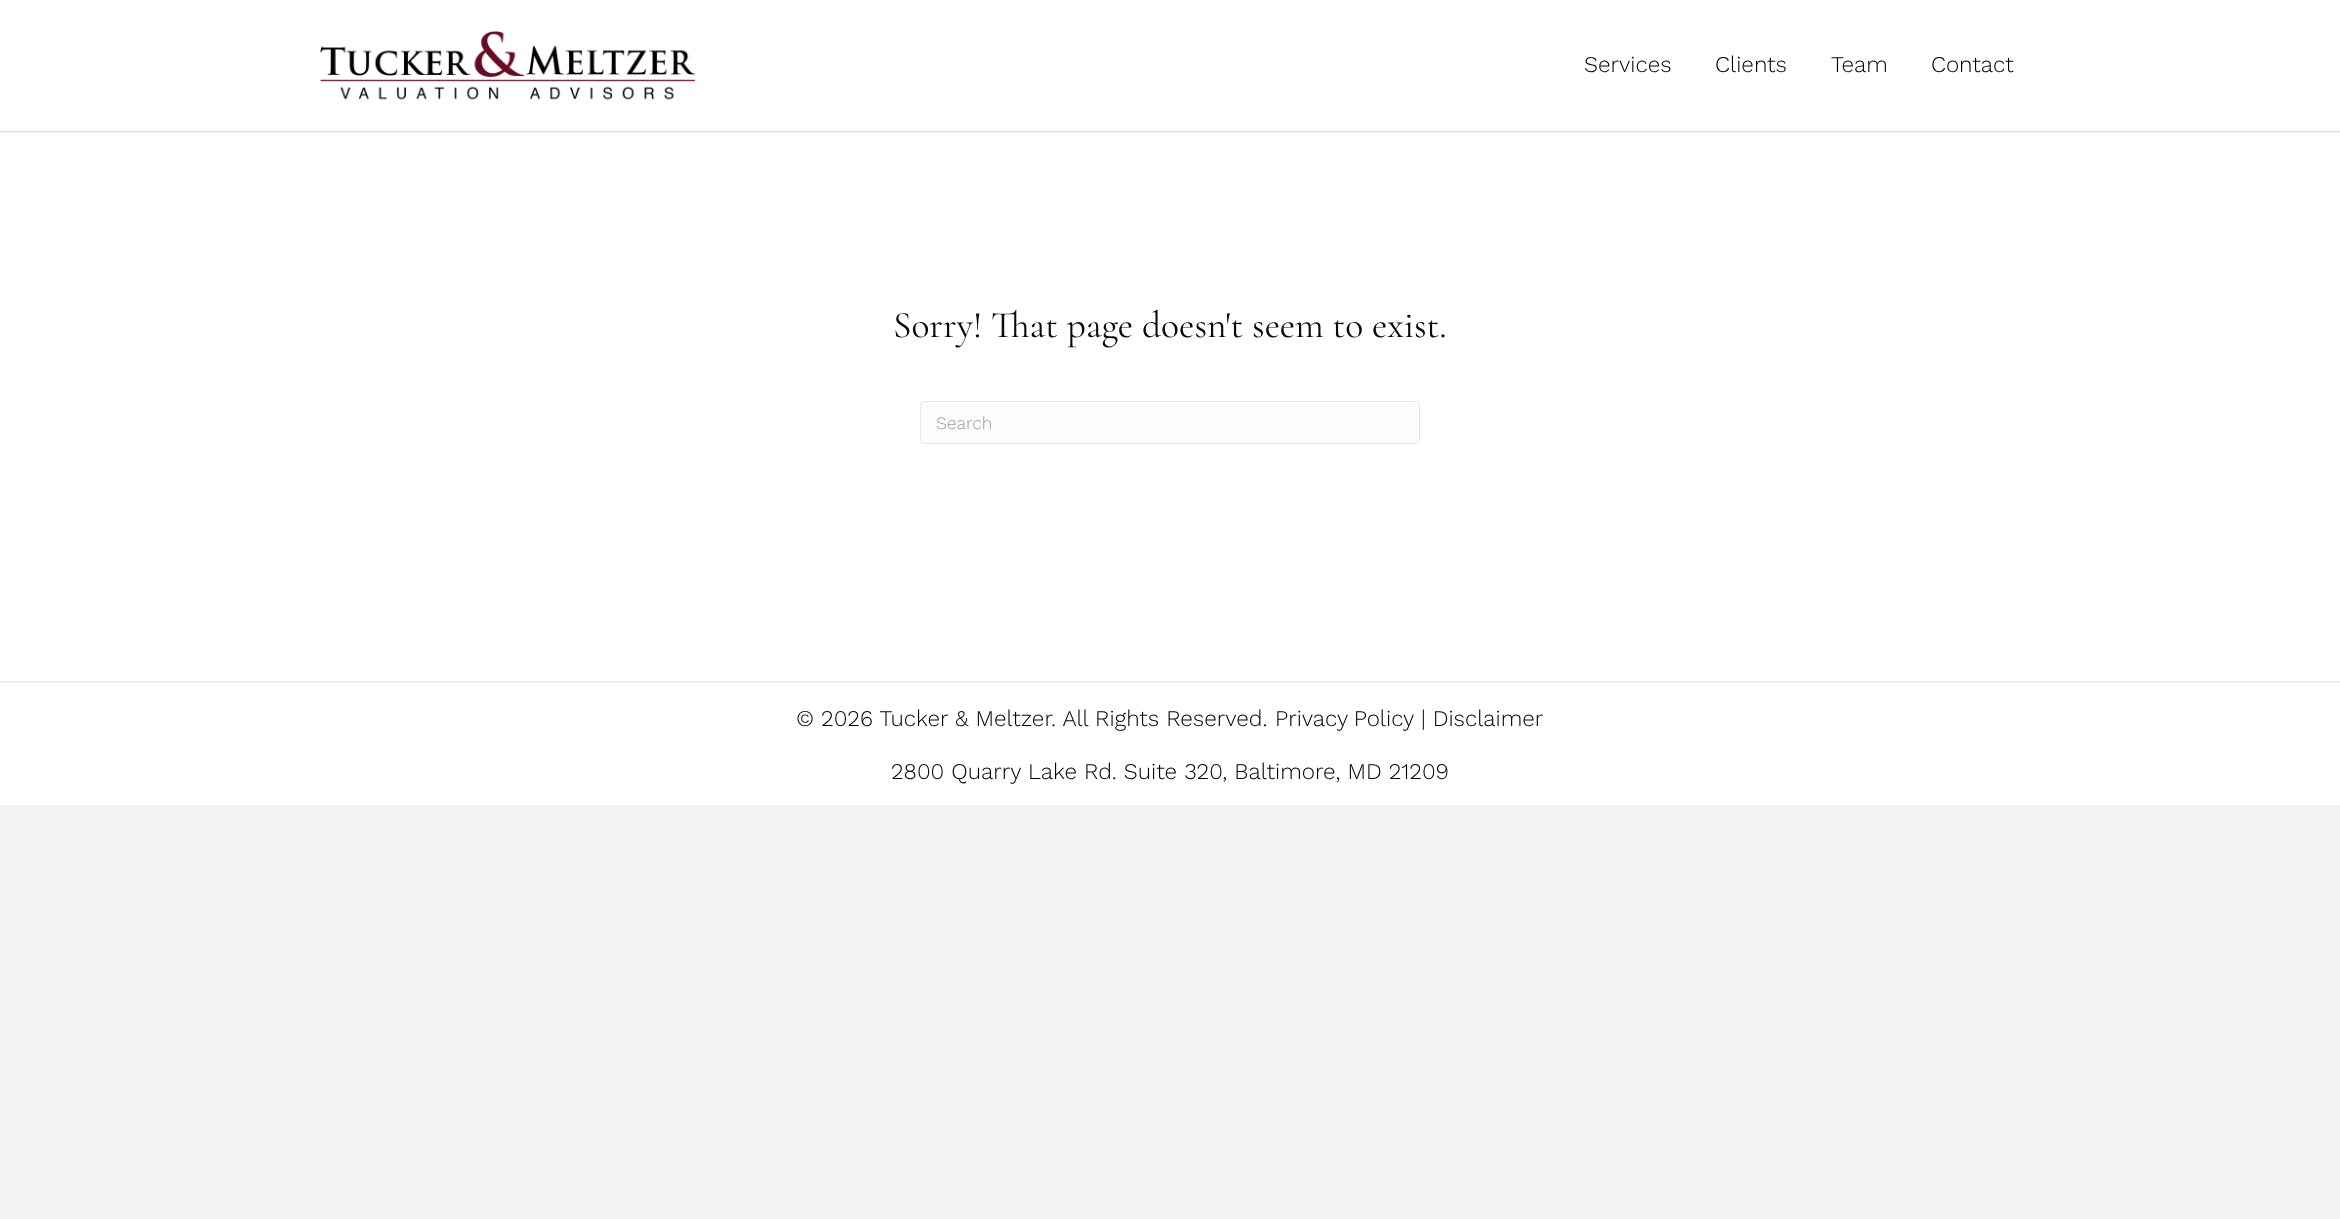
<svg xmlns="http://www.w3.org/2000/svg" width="2340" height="1219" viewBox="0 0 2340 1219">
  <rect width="100%" height="100%" fill="#f2f2f2"/>
  <path d="M0 0h2340v131H0z" fill="#fff"/>
  <path d="M0 131h2340v1H0z" fill="#e0e0e0"/>
  <image x="320" y="30" width="375" height="70" href="img/1.png"/>
  <path d="M0 133h2340v548H0z" fill="#fff"/>
  <rect x="920.5" y="401.5" width="499" height="42" rx="4.5" fill="#fcfcfc" stroke="#e6e6e6"/>
  <path d="M0 683h2340v122H0z" fill="#fff"/>
  <path d="M0 681h2340v1H0z" fill="#e6e9ef"/>
  <g font-family="Work Sans" font-size="22.5" font-weight="300" fill="#000">
    <text x="1584" y="72">Services</text>
    <text x="1715" y="72">Clients</text>
    <text x="1831" y="72">Team</text>
    <text x="1931" y="72">Contact</text>
  </g>
  <text x="893" y="337" font-family="Cormorant Garamond" font-size="37.5" font-weight="300" fill="#0a0a0a">Sorry! That page doesn't seem to exist.</text>
  <text x="936" y="429" font-family="Work Sans" font-size="17.5" font-weight="300" fill="#9b9b9b">Search</text>
  <g font-family="Work Sans" font-size="22.5" font-weight="300" fill="#000">
    <text x="796" y="726">© 2026 Tucker &amp; Meltzer. All Rights Reserved.</text>
    <text x="1275" y="726" word-spacing="-1">Privacy Policy</text>
    <text x="1421" y="726">| Disclaimer</text>
    <text x="891" y="779">2800 Quarry Lake Rd. Suite 320, Baltimore, MD 21209</text>
  </g>
</svg>
